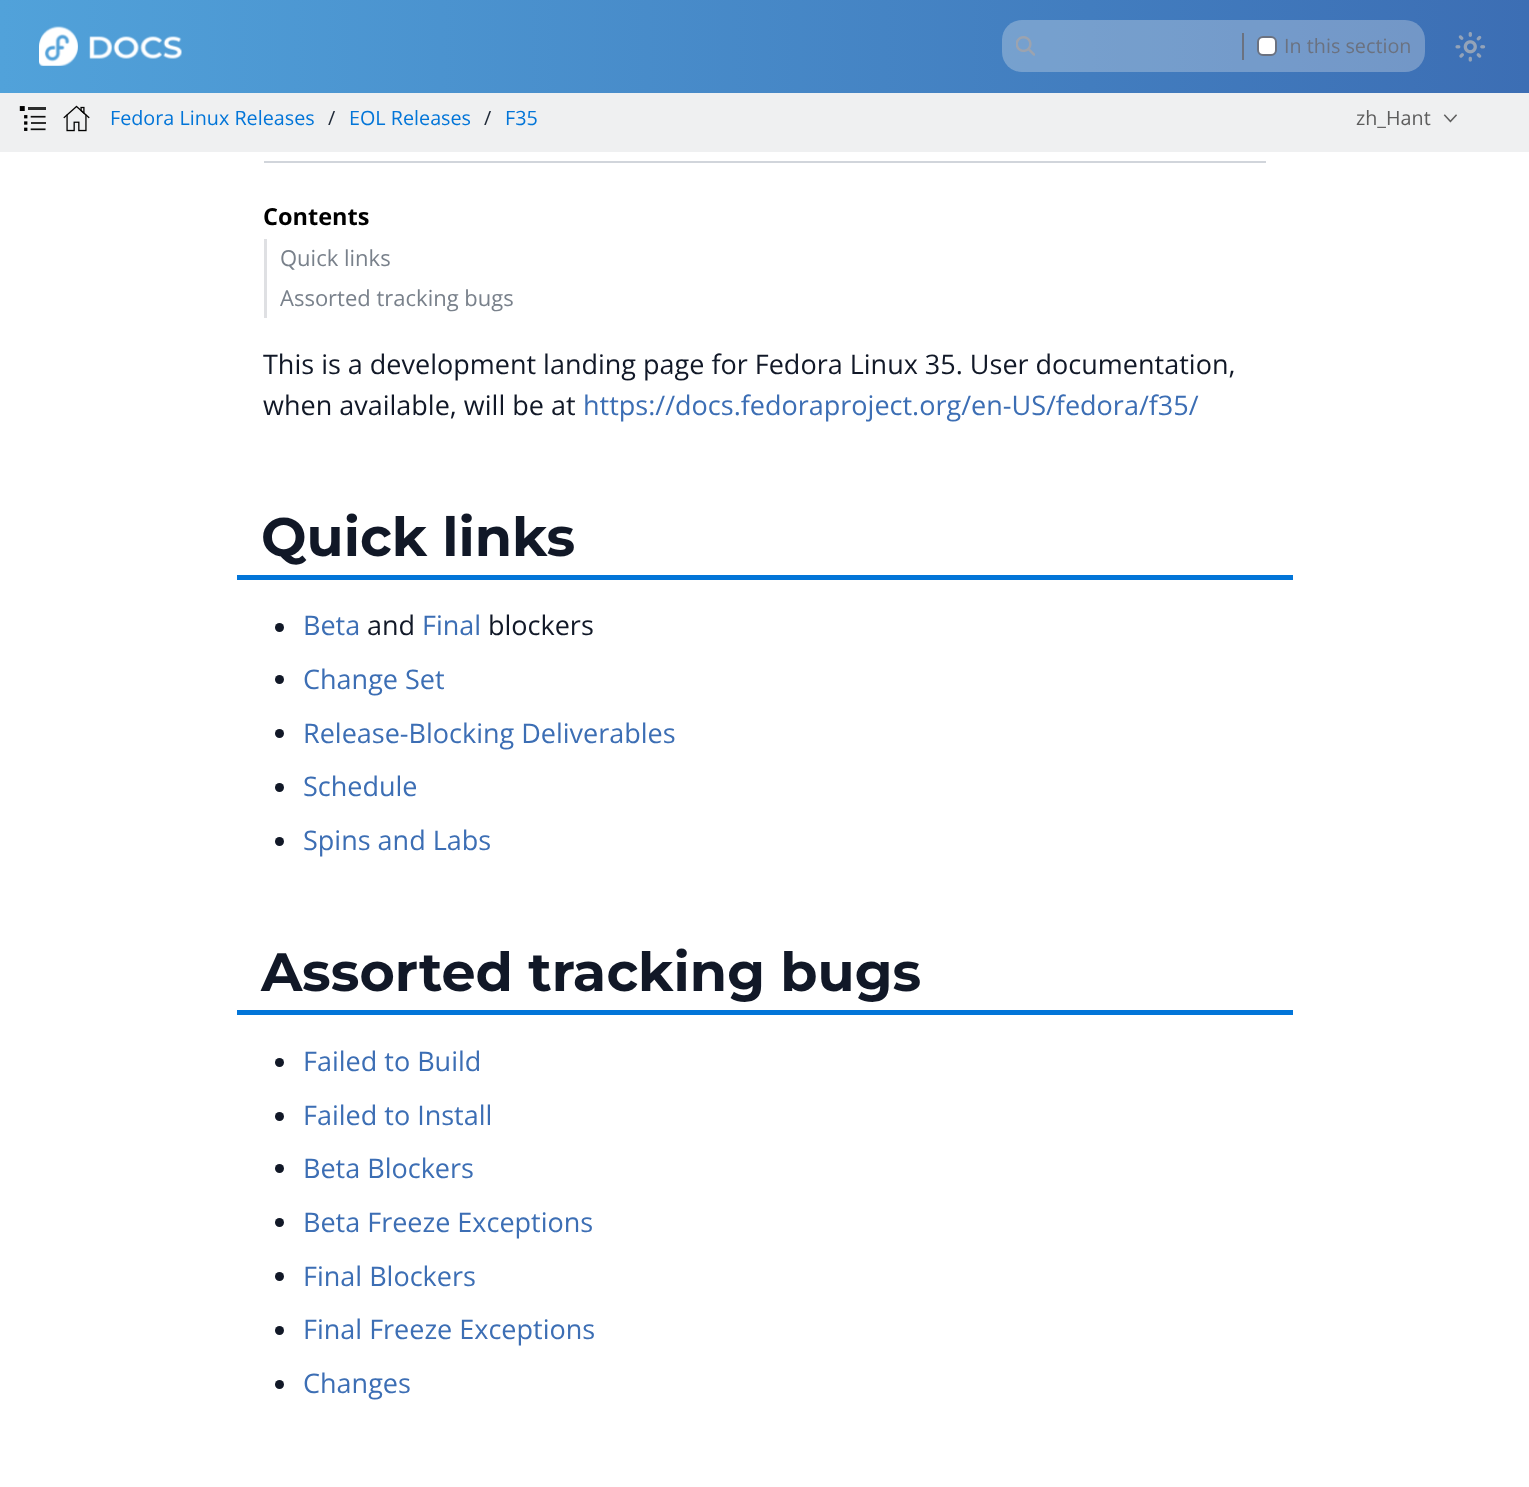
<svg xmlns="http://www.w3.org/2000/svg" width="1529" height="1487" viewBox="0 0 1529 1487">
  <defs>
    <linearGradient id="g1" gradientUnits="userSpaceOnUse" x1="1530" y1="46" x2="0" y2="47"><stop offset="0" stop-color="#3c6eb4"/><stop offset="1" stop-color="#51a2da"/></linearGradient>
  </defs>
  <rect width="100%" height="100%" fill="#fff"/>
  <path d="M0 0h1529v93H0z" fill="url(#g1)"/>
  <image x="39" y="26" width="143" height="40" href="img/1.png"/>
  <rect x="1002" y="20" width="423" height="52" rx="20" fill="#efefef4d"/>
  <image x="1016" y="36" width="19" height="20" href="img/2.png"/>
  <path d="M1242 33h2v27H1242z" fill="#6b7280"/>
  <rect x="1258" y="37" width="18" height="18" rx="5" fill="#fff" stroke="#6b7280" stroke-width="2"/>
  <image x="1455" y="32" width="31" height="30" href="img/3.png"/>
  <path d="M0 93h1529v59H0z" fill="#eff0f1"/>
  <image x="19" y="106" width="27" height="25" href="img/4.png"/>
  <image x="63" y="105" width="27" height="27" href="img/5.png"/>
  <image x="1443" y="114" width="14" height="9" href="img/6.png"/>
  <path d="M264 161h1002v2H264z" fill="#d1d5db"/>
  <path d="M264 239h3v79H264z" fill="#dfe0e3"/>
  <path d="M237 575h1056v5H237z" fill="#0275d8"/>
  <circle cx="279.5" cy="627.5" r="4.5" fill="#111827"/>
  <circle cx="279.5" cy="679.5" r="4.5" fill="#111827"/>
  <circle cx="279.5" cy="733.5" r="4.5" fill="#111827"/>
  <circle cx="279.5" cy="787.5" r="4.5" fill="#111827"/>
  <circle cx="279.5" cy="841.5" r="4.5" fill="#111827"/>
  <path d="M237 1010h1056v5H237z" fill="#0275d8"/>
  <circle cx="279.5" cy="1062.5" r="4.5" fill="#111827"/>
  <circle cx="279.5" cy="1116.5" r="4.5" fill="#111827"/>
  <circle cx="279.5" cy="1168.5" r="4.5" fill="#111827"/>
  <circle cx="279.5" cy="1222.5" r="4.5" fill="#111827"/>
  <circle cx="279.5" cy="1276.5" r="4.5" fill="#111827"/>
  <circle cx="279.5" cy="1330.5" r="4.5" fill="#111827"/>
  <circle cx="279.5" cy="1384.5" r="4.5" fill="#111827"/>
  <text x="1284" y="53" font-family="Open Sans" font-size="19.75" fill="#6b7280">In this section</text>
  <text x="110" y="125" font-family="Open Sans" font-size="19.75" fill="#0275d8">Fedora Linux Releases</text>
  <text x="328" y="125" font-family="Open Sans" font-size="19.75" fill="#1f2937">/</text>
  <text x="349" y="125" font-family="Open Sans" font-size="19.75" fill="#0275d8">EOL Releases</text>
  <text x="484" y="125" font-family="Open Sans" font-size="19.75" fill="#1f2937">/</text>
  <text x="505" y="125" font-family="Open Sans" font-size="19.75" fill="#0275d8">F35</text>
  <text x="1356" y="125" font-family="Open Sans" font-size="19.75" fill="#5d5d5d">zh_Hant</text>
  <text x="263" y="225" font-family="Open Sans" font-size="23.5" font-weight="bold" fill="#000">Contents</text>
  <g font-family="Open Sans" font-size="22" fill="#79818b">
    <text x="280" y="266">Quick links</text>
    <text x="280" y="306">Assorted tracking bugs</text>
  </g>
  <g font-family="Open Sans" font-size="27" fill="#111827">
    <text x="263" y="374">This is a development landing page for Fedora Linux 35. User documentation,</text>
    <text x="263" y="415">when available, will be at</text>
  </g>
  <text x="583" y="415" font-family="Open Sans" font-size="27" fill="#3c6eb4">https://docs.fedoraproject.org/en-US/fedora/f35/</text>
  <text x="261" y="556" font-family="Montserrat" font-size="54" font-weight="bold" fill="#111827">Quick links</text>
  <text x="303" y="635" font-family="Open Sans" font-size="27" fill="#3c6eb4">Beta</text>
  <text x="367" y="635" font-family="Open Sans" font-size="27" fill="#111827">and</text>
  <text x="422" y="635" font-family="Open Sans" font-size="27" fill="#3c6eb4">Final</text>
  <text x="488" y="635" font-family="Open Sans" font-size="27" fill="#111827">blockers</text>
  <g font-family="Open Sans" font-size="27" fill="#3c6eb4">
    <text x="303" y="689">Change Set</text>
    <text x="303" y="743">Release-Blocking Deliverables</text>
    <text x="303" y="796">Schedule</text>
    <text x="303" y="850">Spins and Labs</text>
  </g>
  <text x="261" y="991" font-family="Montserrat" font-size="54" font-weight="bold" fill="#111827">Assorted tracking bugs</text>
  <g font-family="Open Sans" font-size="27" fill="#3c6eb4">
    <text x="303" y="1071">Failed to Build</text>
    <text x="303" y="1125">Failed to Install</text>
    <text x="303" y="1178">Beta Blockers</text>
    <text x="303" y="1232">Beta Freeze Exceptions</text>
    <text x="303" y="1286">Final Blockers</text>
    <text x="303" y="1339">Final Freeze Exceptions</text>
    <text x="303" y="1393">Changes</text>
  </g>
</svg>
